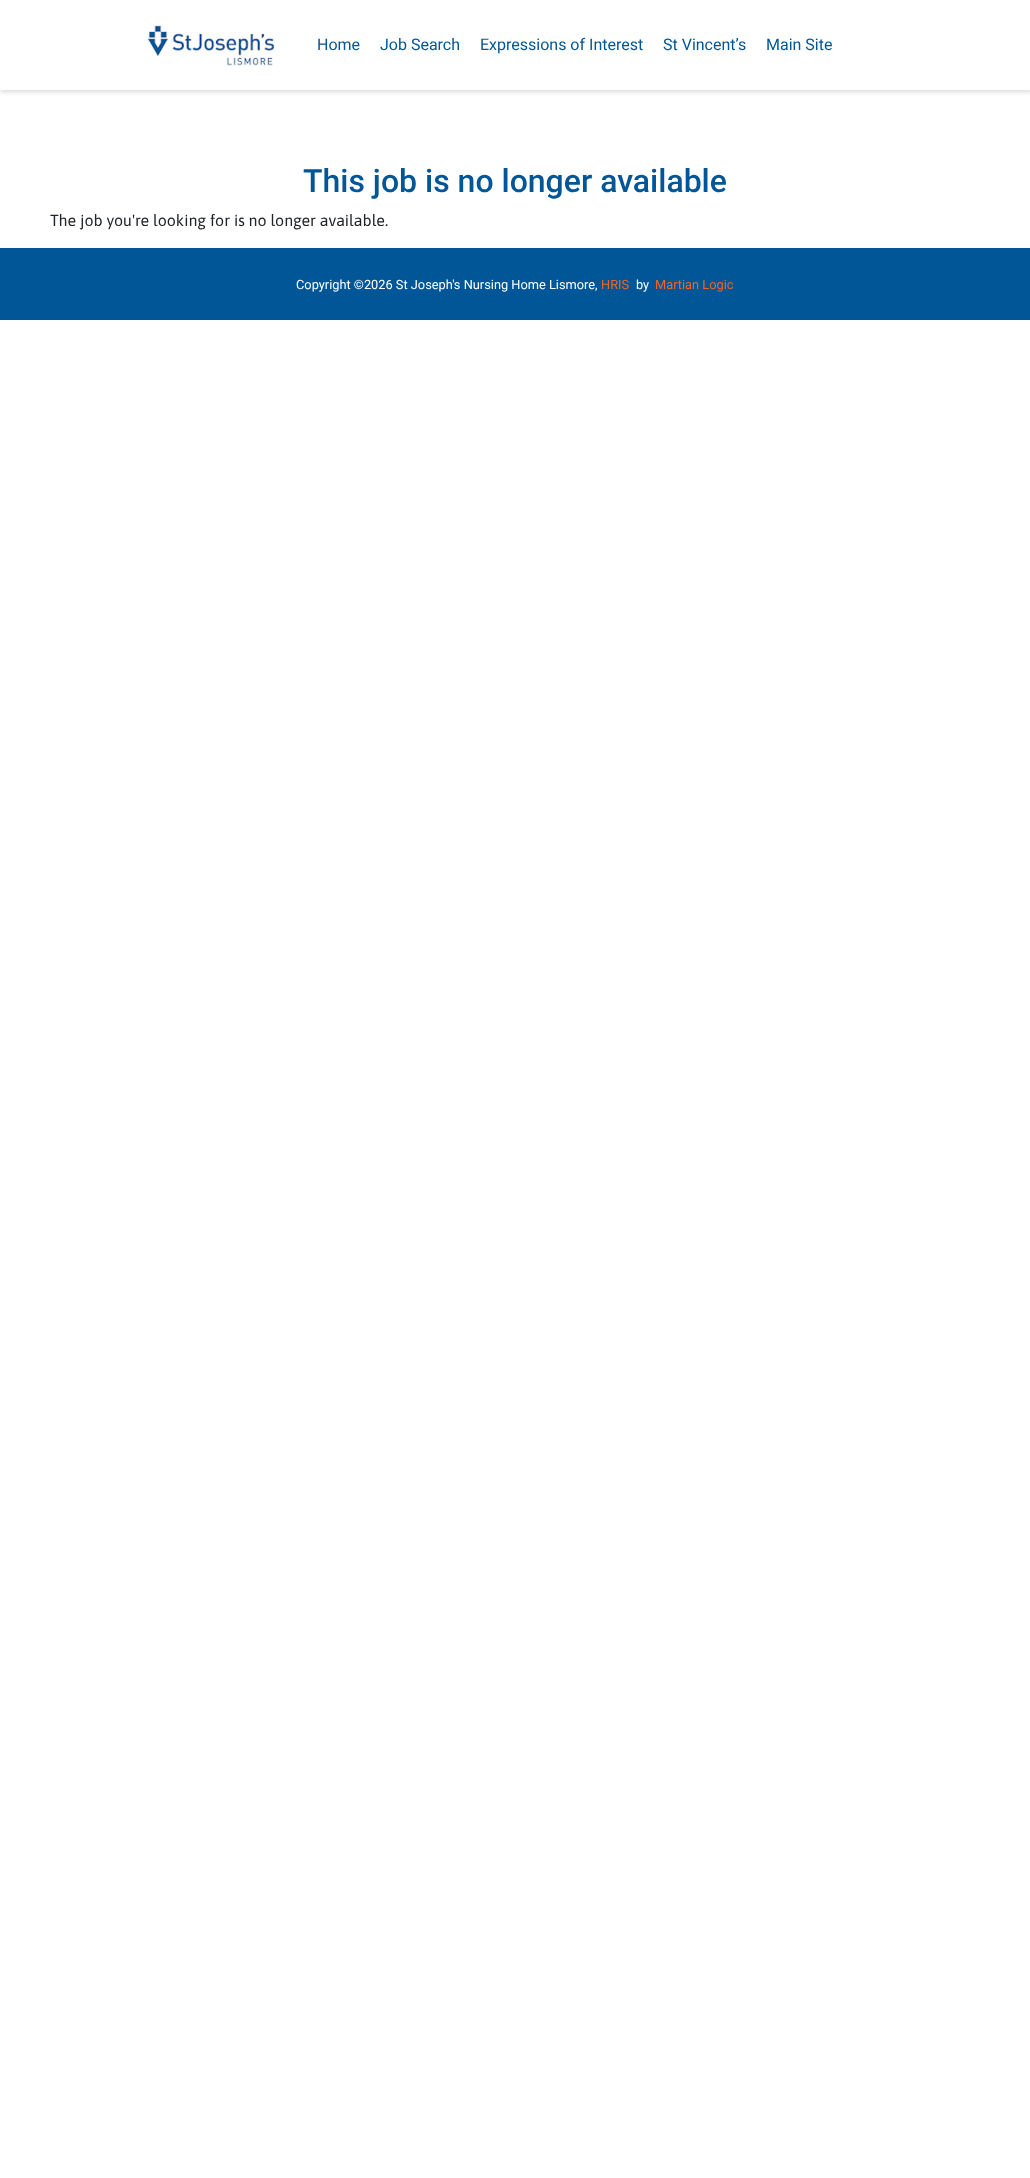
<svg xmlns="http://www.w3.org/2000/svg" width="1030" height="2178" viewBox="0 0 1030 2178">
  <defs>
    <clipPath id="clip1"><path d="M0 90h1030v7H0z"/></clipPath>
  </defs>
  <rect width="100%" height="100%" fill="#fff"/>
  <g clip-path="url(#clip1)">
    <path d="M0 0h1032v92H0z" fill="#dadada" filter="blur(2.5px)"/>
  </g>
  <image x="147" y="25" width="128" height="41" href="img/1.png"/>
  <path d="M0 248h1030v72H0z" fill="#005696"/>
  <g font-family="Roboto" font-size="16" fill="#005696">
    <text x="317" y="50">Home</text>
    <text x="380" y="50">Job Search</text>
    <text x="480" y="50">Expressions of Interest</text>
    <text x="663" y="50">St Vincent’s</text>
    <text x="766" y="50">Main Site</text>
  </g>
  <text x="303" y="192" font-family="Roboto" font-size="32" font-weight="500" fill="#005696">This job is no longer available</text>
  <text x="50" y="226" font-family="Asap" font-size="16" fill="#212529">The job you're looking for is no longer available.</text>
  <text x="296" y="289" font-family="Roboto" font-size="12.8" fill="#fff">Copyright ©2026 St Joseph's Nursing Home Lismore,</text>
  <text x="601" y="289" font-family="Roboto" font-size="12.8" fill="#f26525">HRIS</text>
  <text x="636" y="289" font-family="Roboto" font-size="12.8" fill="#fff">by</text>
  <text x="655" y="289" font-family="Roboto" font-size="12.8" fill="#f26525">Martian Logic</text>
</svg>
